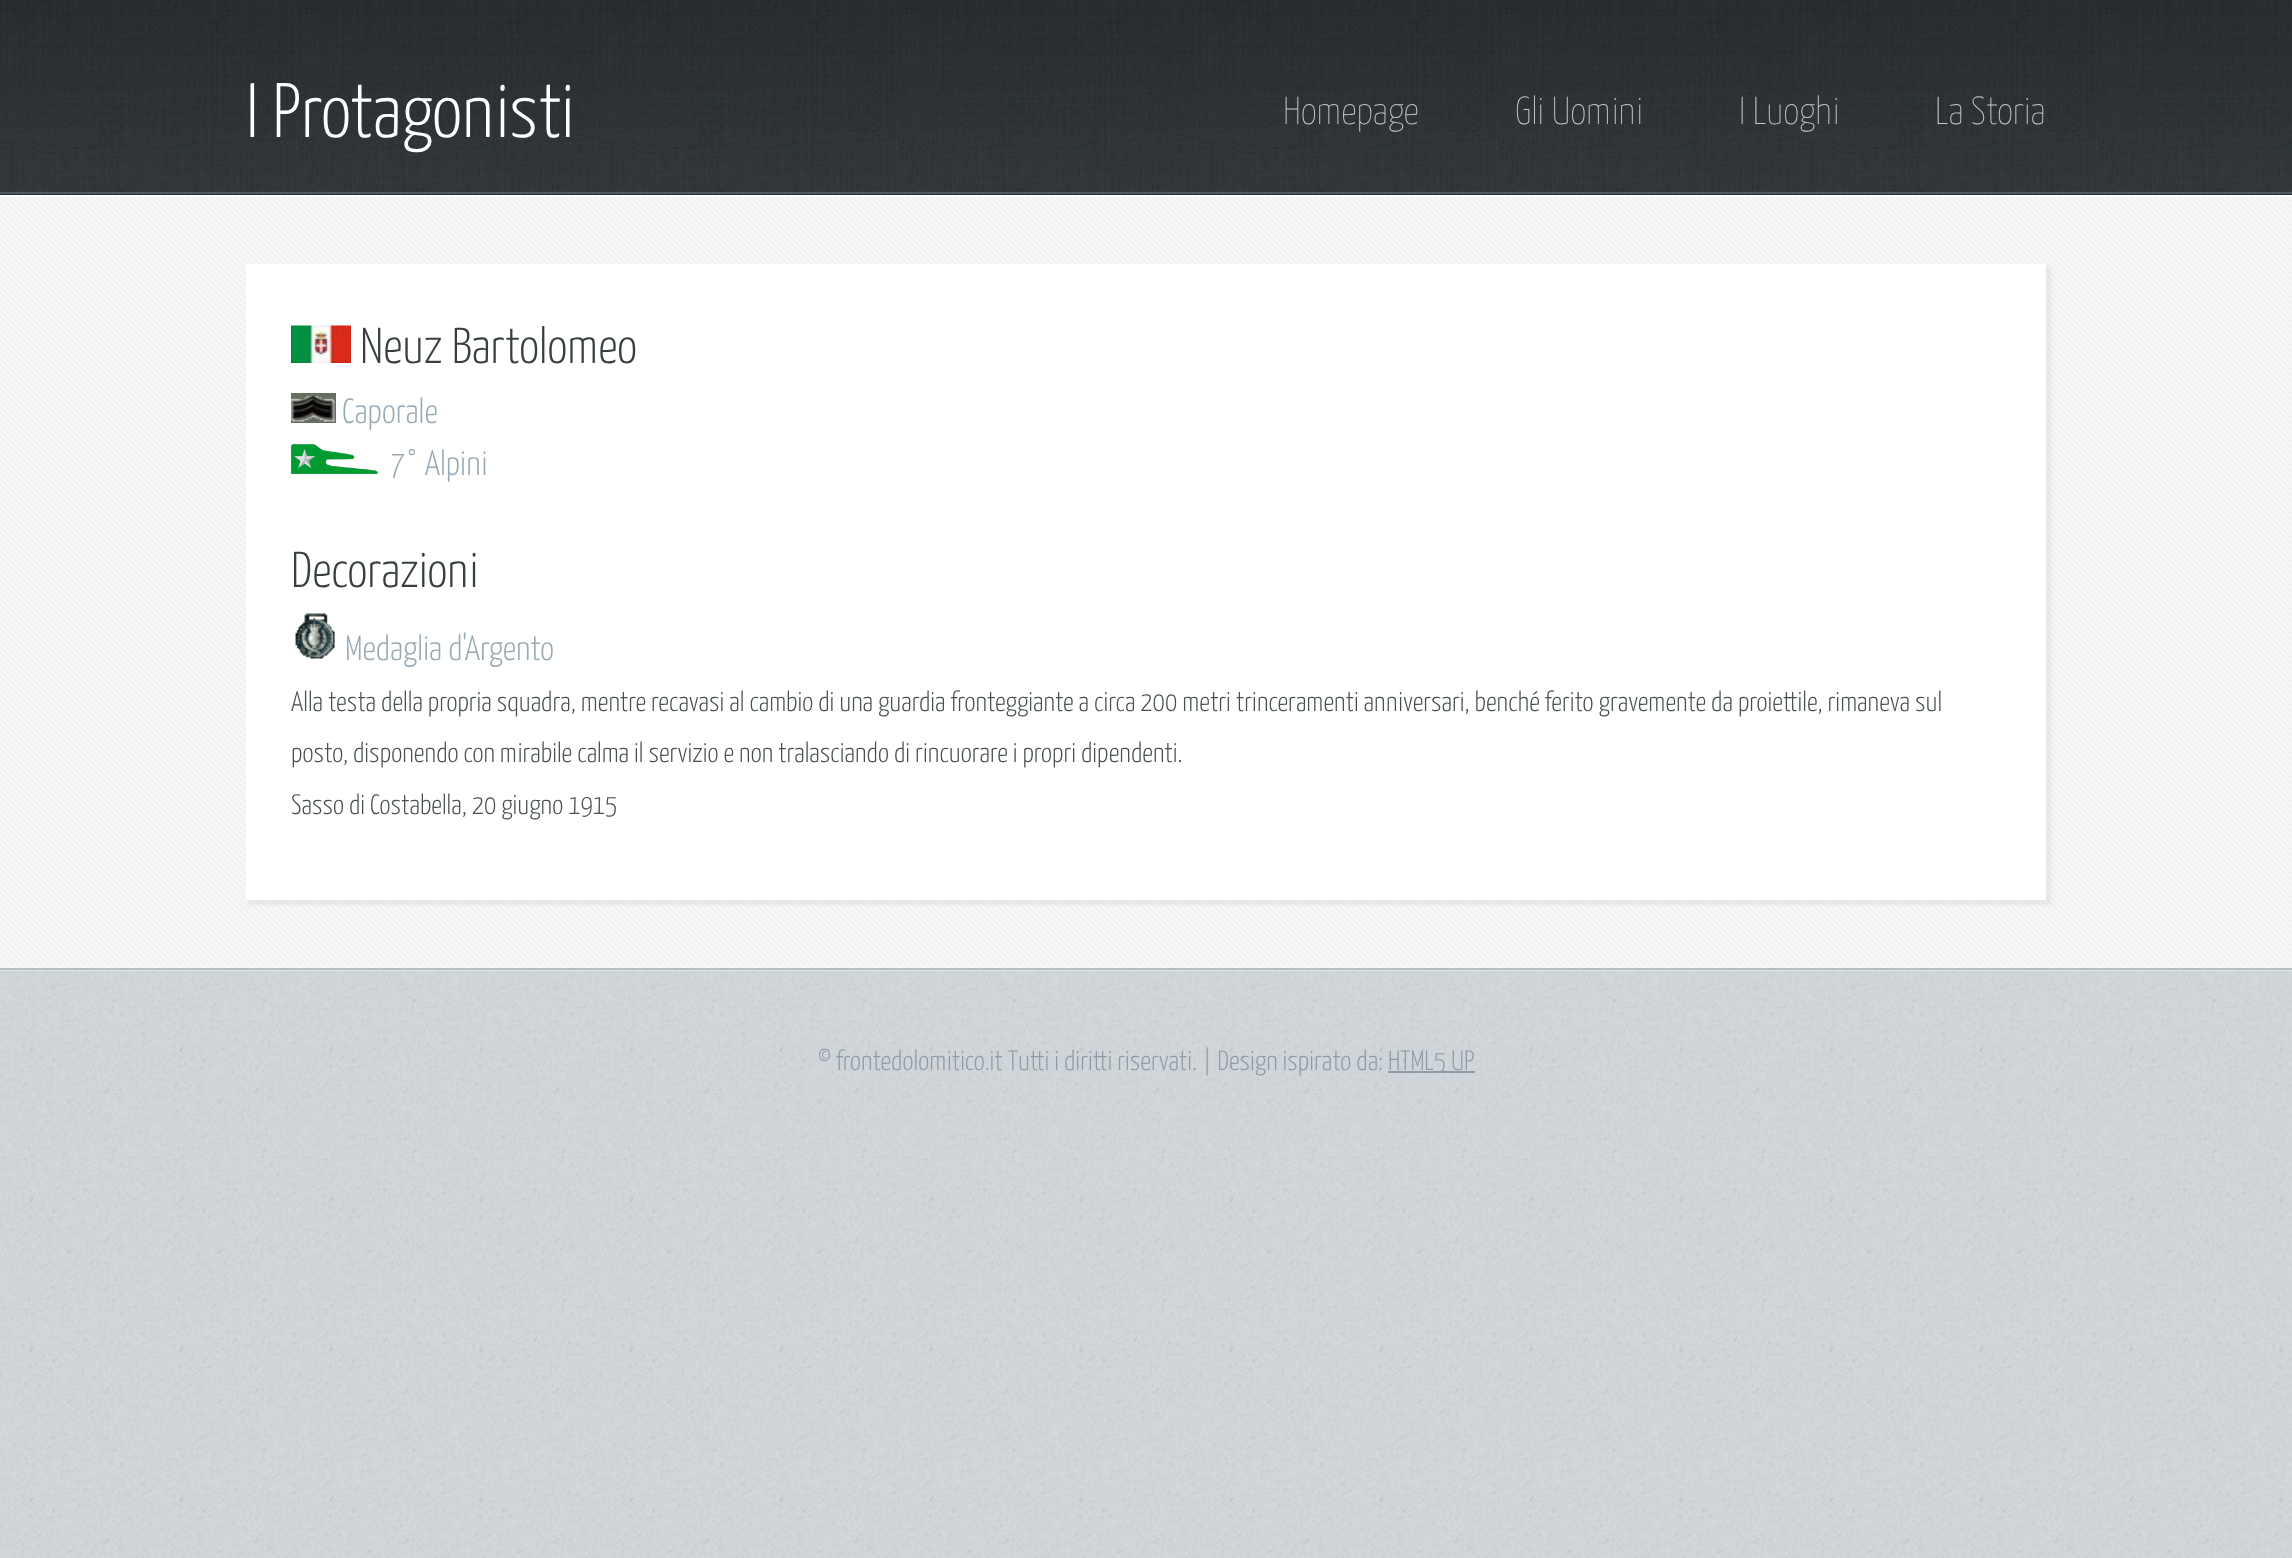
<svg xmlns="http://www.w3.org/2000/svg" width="2292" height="1558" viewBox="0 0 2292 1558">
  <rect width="100%" height="100%" fill="#fff"/>
  <image x="0" y="971" width="2292" height="587" href="img/1.png"/>
  <image x="0" y="0" width="2292" height="192" href="img/2.png"/>
  <path d="M0 192h2292v2H0z" fill="#51575a"/>
  <path d="M0 194h2292v1H0z" fill="#272d30"/>
  <path d="M0 197h2292v771H0z" fill="#f7f7f7"/>
  <image x="0" y="197" width="2292" height="770" href="img/3.png"/>
  <path d="M248 266h1803v639H248z" fill="#8080801a" filter="blur(1.5px)"/>
  <path d="M246 264h1800v636H246z" fill="#fff"/>
  <image x="291" y="325" width="60" height="38" href="img/4.png"/>
  <image x="291" y="393" width="45" height="30" href="img/5.png"/>
  <image x="291" y="444" width="87" height="30" href="img/6.png"/>
  <image x="295" y="613" width="40" height="46" href="img/7.png"/>
  <path d="M0 970h2292v1H0z" fill="#e0e4e7"/>
  <path d="M0 968h2292v2H0z" fill="#b5bec3"/>
  <path d="M1388 1071h87v2H1388z" fill="#8d9ca3"/>
  <text x="246" y="137" font-family="Yanone Kaffeesatz" font-size="77" font-weight="300" fill="#fff">I Protagonisti</text>
  <g font-family="Yanone Kaffeesatz" font-size="39" font-weight="200" fill="#c6c8c8">
    <text x="1283" y="124">Homepage</text>
    <text x="1515" y="124">Gli Uomini</text>
    <text x="1739" y="124">I Luoghi</text>
    <text x="1935" y="124">La Storia</text>
  </g>
  <text x="360" y="363" font-family="Yanone Kaffeesatz" font-size="50.5" font-weight="300" fill="#373f42">Neuz Bartolomeo</text>
  <g font-family="Yanone Kaffeesatz" font-size="35" font-weight="300" fill="#96a9b5">
    <text x="342" y="423">Caporale</text>
    <text x="390" y="475">7° Alpini</text>
  </g>
  <text x="291" y="587" font-family="Yanone Kaffeesatz" font-size="50.5" font-weight="300" fill="#373f42">Decorazioni</text>
  <text x="345" y="660" font-family="Yanone Kaffeesatz" font-size="35" font-weight="300" fill="#96a9b5">Medaglia d'Argento</text>
  <g font-family="Yanone Kaffeesatz" font-size="28" font-weight="300" fill="#474f51">
    <text x="291" y="711">Alla testa della propria squadra, mentre recavasi al cambio di una guardia fronteggiante a circa 200 metri trinceramenti anniversari, benché ferito gravemente da proiettile, rimaneva sul</text>
    <text x="291" y="762">posto, disponendo con mirabile calma il servizio e non tralasciando di rincuorare i propri dipendenti.</text>
    <text x="291" y="814">Sasso di Costabella, 20 giugno 1915</text>
  </g>
  <g font-family="Yanone Kaffeesatz" font-size="28" font-weight="300" fill="#8d9ca3">
    <text x="818" y="1070">© frontedolomitico.it Tutti i diritti riservati. | Design ispirato da:</text>
    <text x="1388" y="1070">HTML5 UP</text>
  </g>
</svg>
